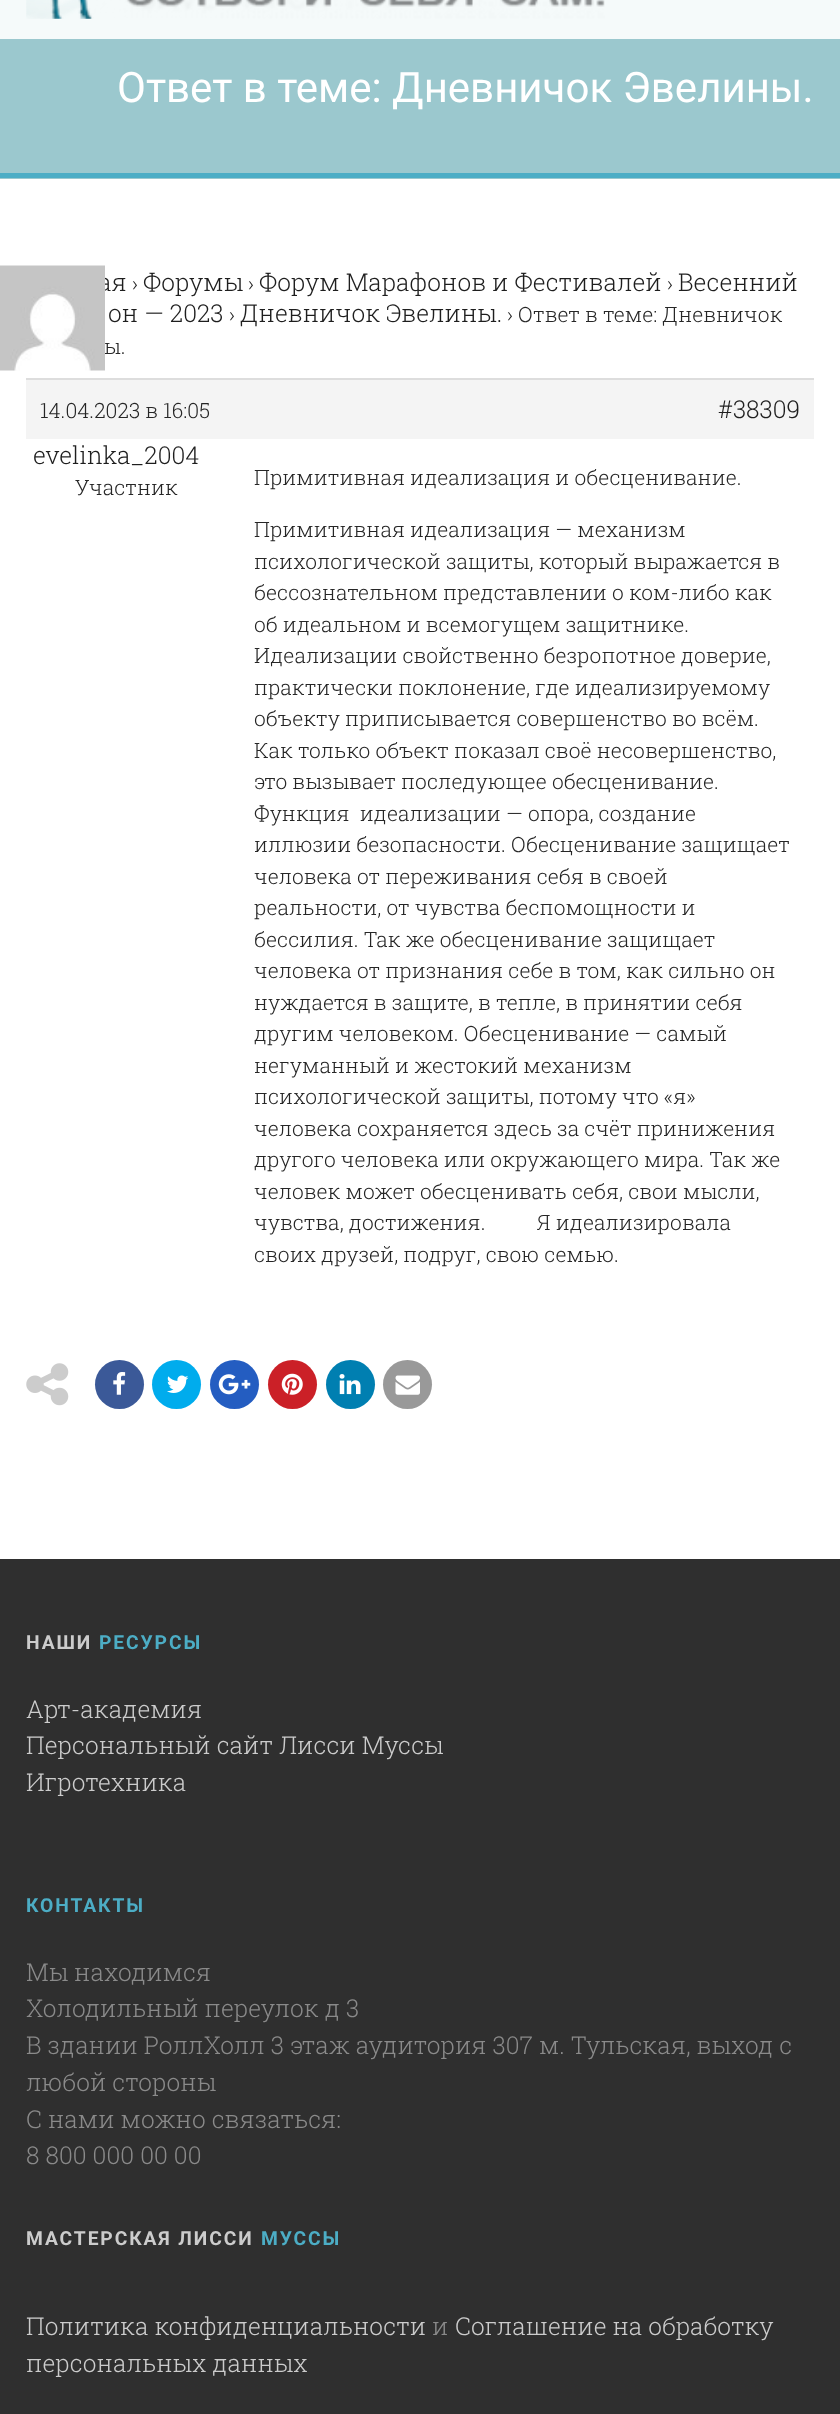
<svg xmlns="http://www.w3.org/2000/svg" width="840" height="2414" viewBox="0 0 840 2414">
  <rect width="100%" height="100%" fill="#fff"/>
  <path d="M0 0h840v39H0z" fill="#f5fafa"/>
  <image x="26" y="0" width="579" height="19" href="img/1.png"/>
  <path d="M0 39h840v140H0z" fill="#9bc8ce"/>
  <path d="M0 173h840v5H0z" fill="#4cadc5"/>
  <path d="M26 380h788v59H26z" fill="#f4f4f4"/>
  <path d="M26 378h788v2H26z" fill="#ddd"/>
  <image x="26" y="1363" width="43" height="43" href="img/3.png"/>
  <circle cx="119.5" cy="1384.5" r="24.5" fill="#3b5998"/>
  <image x="113" y="1372" width="13" height="23" href="img/4.png"/>
  <circle cx="176.5" cy="1384.5" r="24.5" fill="#00aced"/>
  <image x="167" y="1375" width="22" height="18" href="img/5.png"/>
  <circle cx="234.5" cy="1384.5" r="24.5" fill="#245dc1"/>
  <image x="218" y="1374" width="33" height="21" href="img/6.png"/>
  <circle cx="292.5" cy="1384.5" r="24.5" fill="#cb2027"/>
  <image x="281" y="1373" width="22" height="22" href="img/7.png"/>
  <circle cx="350.5" cy="1384.5" r="24.5" fill="#007fb1"/>
  <image x="339" y="1374" width="22" height="21" href="img/8.png"/>
  <circle cx="407.5" cy="1384.5" r="24.5" fill="#999"/>
  <image x="395" y="1375" width="25" height="20" href="img/9.png"/>
  <path d="M0 1559h840v855H0z" fill="#2f2f2f"/>
  <text x="117" y="102" font-family="Roboto" font-size="42" fill="#fff">Ответ в теме: Дневничок Эвелины.</text>
  <text x="98" y="291" font-family="Roboto Slab" font-size="24.5" font-weight="300" fill="#1e1e1e">ая</text>
  <text x="132" y="291" font-family="Roboto Slab" font-size="21" font-weight="300" fill="#262626">›</text>
  <text x="143" y="291" font-family="Roboto Slab" font-size="24.5" font-weight="300" fill="#1e1e1e">Форумы</text>
  <text x="248" y="291" font-family="Roboto Slab" font-size="21" font-weight="300" fill="#262626">›</text>
  <text x="259" y="291" font-family="Roboto Slab" font-size="24.5" font-weight="300" fill="#1e1e1e">Форум Марафонов и Фестивалей</text>
  <text x="667" y="291" font-family="Roboto Slab" font-size="21" font-weight="300" fill="#262626">›</text>
  <g font-family="Roboto Slab" font-size="24.5" font-weight="300" fill="#1e1e1e">
    <text x="678" y="291">Весенний</text>
    <text x="108" y="322">он — 2023</text>
  </g>
  <text x="229" y="322" font-family="Roboto Slab" font-size="21" font-weight="300" fill="#262626">›</text>
  <text x="240" y="322" font-family="Roboto Slab" font-size="24.5" font-weight="300" fill="#1e1e1e">Дневничок Эвелины.</text>
  <g font-family="Roboto Slab" font-size="21" font-weight="300" fill="#262626">
    <text x="507" y="322">› Ответ в теме: Дневничок</text>
    <text x="104" y="354">ы.</text>
    <text x="40" y="418">14.04.2023 в 16:05</text>
  </g>
  <text x="718" y="418" font-family="Roboto Slab" font-size="24.5" font-weight="300" fill="#1e1e1e">#38309</text>
  <image x="0" y="265" width="105" height="106" href="img/2.png"/>
  <text x="33" y="464" font-family="Roboto Slab" font-size="24.5" font-weight="300" fill="#1e1e1e">evelinka_2004</text>
  <g font-family="Roboto Slab" font-size="21" font-weight="300" fill="#262626">
    <text x="75" y="495">Участник</text>
    <text x="254" y="485">Примитивная идеализация и обесценивание.</text>
    <text x="254" y="537">Примитивная идеализация — механизм</text>
    <text x="254" y="569">психологической защиты, который выражается в</text>
    <text x="254" y="600">бессознательном представлении о ком-либо как</text>
    <text x="254" y="632">об идеальном и всемогущем защитнике.</text>
    <text x="254" y="663">Идеализации свойственно безропотное доверие,</text>
    <text x="254" y="695">практически поклонение, где идеализируемому</text>
    <text x="254" y="726">объекту приписывается совершенство во всём.</text>
    <text x="254" y="758">Как только объект показал своё несовершенство,</text>
    <text x="254" y="789">это вызывает последующее обесценивание.</text>
    <text x="254" y="821" xml:space="preserve">Функция  идеализации — опора, создание</text>
    <text x="254" y="852">иллюзии безопасности. Обесценивание защищает</text>
    <text x="254" y="884">человека от переживания себя в своей</text>
    <text x="254" y="915">реальности, от чувства беспомощности и</text>
    <text x="254" y="947">бессилия. Так же обесценивание защищает</text>
    <text x="254" y="978">человека от признания себе в том, как сильно он</text>
    <text x="254" y="1010">нуждается в защите, в тепле, в принятии себя</text>
    <text x="254" y="1041">другим человеком. Обесценивание — самый</text>
    <text x="254" y="1073">негуманный и жестокий механизм</text>
    <text x="254" y="1104">психологической защиты, потому что «я»</text>
    <text x="254" y="1136">человека сохраняется здесь за счёт принижения</text>
    <text x="254" y="1167">другого человека или окружающего мира. Так же</text>
    <text x="254" y="1199">человек может обесценивать себя, свои мысли,</text>
    <text x="254" y="1230" xml:space="preserve">чувства, достижения.          Я идеализировала</text>
    <text x="254" y="1262">своих друзей, подруг, свою семью.</text>
  </g>
  <text x="26" y="1649" font-family="Roboto" font-size="19.25" font-weight="bold" letter-spacing="1.9" fill="#ccc">НАШИ</text>
  <text x="99" y="1649" font-family="Roboto" font-size="19.25" font-weight="bold" letter-spacing="1.9" fill="#4cadc5">РЕСУРСЫ</text>
  <g font-family="Roboto Slab" font-size="24.5" font-weight="300" fill="#ccc">
    <text x="26" y="1718">Арт-академия</text>
    <text x="26" y="1754">Персональный сайт Лисси Муссы</text>
    <text x="26" y="1791">Игротехника</text>
  </g>
  <text x="26" y="1912" font-family="Roboto" font-size="19.25" font-weight="bold" letter-spacing="1.9" fill="#4cadc5">КОНТАКТЫ</text>
  <g font-family="Roboto Slab" font-size="24.5" font-weight="300" fill="#8a8a8a">
    <text x="26" y="1981">Мы находимся</text>
    <text x="26" y="2017">Холодильный переулок д 3</text>
    <text x="26" y="2054">В здании РоллХолл 3 этаж аудитория 307 м. Тульская, выход с</text>
    <text x="26" y="2091">любой стороны</text>
    <text x="26" y="2128">С нами можно связаться:</text>
    <text x="26" y="2164">8 800 000 00 00</text>
  </g>
  <text x="26" y="2245" font-family="Roboto" font-size="19.25" font-weight="bold" letter-spacing="1.9" fill="#ccc">МАСТЕРСКАЯ ЛИССИ</text>
  <text x="261" y="2245" font-family="Roboto" font-size="19.25" font-weight="bold" letter-spacing="1.9" fill="#4cadc5">МУССЫ</text>
  <text x="26" y="2335" font-family="Roboto Slab" font-size="24.5" font-weight="300" fill="#ccc">Политика конфиденциальности</text>
  <text x="432" y="2335" font-family="Roboto Slab" font-size="24.5" font-weight="300" fill="#8a8a8a">и</text>
  <g font-family="Roboto Slab" font-size="24.5" font-weight="300" fill="#ccc">
    <text x="455" y="2335">Соглашение на обработку</text>
    <text x="26" y="2372">персональных данных</text>
  </g>
</svg>
